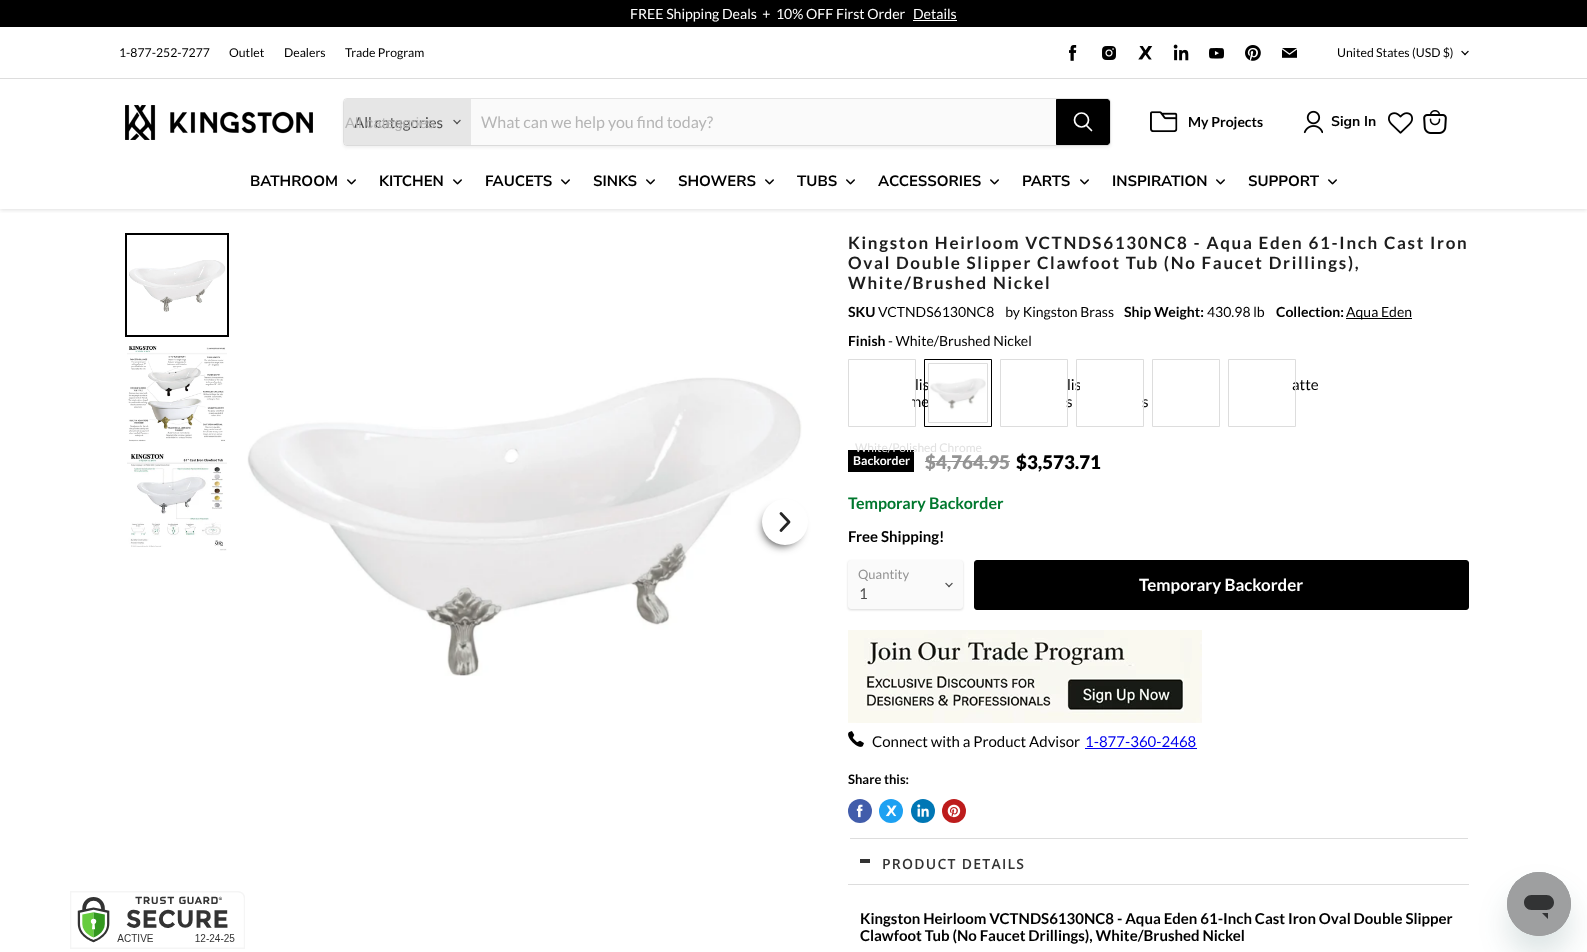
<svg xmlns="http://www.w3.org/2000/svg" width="1587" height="952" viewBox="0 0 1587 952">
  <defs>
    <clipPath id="clip1"><path d="M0 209h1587v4H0z"/></clipPath>
  </defs>
  <rect width="100%" height="100%" fill="#fff"/>
  <path d="M0 0h1587v27H0z" fill="#000"/>
  <path d="M913 20h44v1H913z" fill="#fff"/>
  <g clip-path="url(#clip1)">
    <path d="M0 80h1587v130H0z" fill="#80808040" filter="blur(2px)"/>
  </g>
  <path d="M2 77h1583v1H2z" fill="#fff"/>
  <path d="M0 78h1587v1H0z" fill="#ddd"/>
  <image x="1069" y="45" width="8" height="16" href="img/1.png"/>
  <image x="1102" y="46" width="14" height="14" href="img/2.png"/>
  <image x="1138" y="46" width="15" height="14" href="img/3.png"/>
  <image x="1173" y="44" width="16" height="17" href="img/4.png"/>
  <image x="1209" y="48" width="15" height="11" href="img/5.png"/>
  <image x="1245" y="45" width="16" height="16" href="img/6.png"/>
  <image x="1282" y="48" width="15" height="10" href="img/7.png"/>
  <image x="1461" y="50" width="8" height="6" href="img/8.png"/>
  <image x="125" y="105" width="188" height="35" href="img/9.png"/>
  <rect x="343" y="100" width="768" height="48" rx="4" fill="#8080801c" filter="blur(1.5px)"/>
  <rect x="343.5" y="98.5" width="767" height="47" rx="3.5" fill="none" stroke="#80808033"/>
  <path d="M347 99H471V145H347C345.5 145 344 143.5 344 142V102C344 100.5 345.5 99 347 99Z" fill="#e6e6e6"/>
  <image x="453" y="119" width="8" height="6" href="img/10.png"/>
  <path d="M471 100h585v45H471z" fill="#fafafa"/>
  <path d="M1056.5 99.5H1107C1108.5 99.5 1109.5 100.5 1109.5 102V142C1109.5 143.5 1108.5 144.5 1107 144.5H1056.5Z" fill="#000" stroke="#000"/>
  <path d="M1091.5 130.5L1086.5 125.5" fill="none" stroke="#fff" stroke-width="1.7" stroke-linecap="round"/>
  <circle cx="1081.5" cy="120" r="7" fill="none" stroke="#fff" stroke-width="1.7"/>
  <image x="1150" y="111" width="28" height="22" href="img/11.png"/>
  <image x="1303" y="110" width="20" height="24" href="img/12.png"/>
  <image x="1388" y="112" width="25" height="22" href="img/13.png"/>
  <image x="1423" y="110" width="24" height="24" href="img/14.png"/>
  <image x="347" y="179" width="9" height="6" href="img/15.png"/>
  <image x="453" y="179" width="9" height="6" href="img/15.png"/>
  <image x="561" y="179" width="9" height="6" href="img/15.png"/>
  <image x="646" y="179" width="9" height="6" href="img/15.png"/>
  <image x="765" y="179" width="9" height="6" href="img/15.png"/>
  <image x="846" y="179" width="9" height="6" href="img/15.png"/>
  <image x="990" y="179" width="9" height="6" href="img/15.png"/>
  <image x="1080" y="179" width="9" height="6" href="img/15.png"/>
  <image x="1216" y="179" width="9" height="6" href="img/15.png"/>
  <image x="1328" y="179" width="9" height="6" href="img/15.png"/>
  <image x="70" y="891" width="175" height="58" href="img/16.png"/>
  <path d="M126 234h102v102H126z" fill="none" stroke="#000" stroke-width="2"/>
  <image x="129" y="260" width="97" height="52" href="img/17.png"/>
  <image x="127" y="346" width="100" height="96" href="img/18.png"/>
  <image x="127" y="453" width="100" height="98" href="img/19.png"/>
  <image x="248" y="377" width="553" height="6" href="img/20.png"/>
  <image x="247" y="383" width="555" height="293" href="img/21.png"/>
  <rect x="764" y="509" width="36" height="36" rx="18" fill="#262626" filter="blur(5px)"/>
  <circle cx="785" cy="522" r="23" fill="#fff"/>
  <path d="M781 513.5L789 522L781 530.5" fill="none" stroke="#262626" stroke-width="2.8" stroke-linecap="round" stroke-linejoin="round"/>
  <path d="M1346 318h66v1H1346z" fill="#000"/>
  <path d="M924.5 359.5h67v67H924.5z" fill="none" stroke="#000"/>
  <image x="930" y="378" width="56" height="32" href="img/22.png"/>
  <path d="M1152.5 359.5h67v67H1152.5z" fill="none" stroke="#ddd"/>
  <path d="M848 450h66v22H848z" fill="#000"/>
  <path d="M925 461h85v1H925z" fill="#949494"/>
  <rect x="848" y="561" width="115" height="49" rx="3" fill="#00000026" filter="blur(1px)"/>
  <rect x="848.5" y="560.5" width="114" height="48" rx="2.5" fill="#fafafa" stroke="#fafafa"/>
  <image x="945" y="582" width="8" height="6" href="img/23.png"/>
  <rect x="974.5" y="560.5" width="494" height="49" rx="2.5" fill="#000" stroke="#000"/>
  <image x="848" y="630" width="354" height="93" href="img/24.png"/>
  <image x="848" y="731" width="16" height="16" href="img/25.png"/>
  <path d="M1085 748h112v1H1085z" fill="#00e"/>
  <circle cx="860" cy="811" r="12" fill="#425dab"/>
  <image x="856" y="804" width="7" height="14" href="img/26.png"/>
  <circle cx="891" cy="811" r="12" fill="#1da1f2"/>
  <image x="885" y="805" width="12" height="12" href="img/27.png"/>
  <circle cx="923" cy="811" r="12" fill="#0077b5"/>
  <image x="917" y="804" width="12" height="13" href="img/28.png"/>
  <circle cx="954" cy="811" r="12" fill="#bd1c1c"/>
  <image x="947" y="804" width="14" height="14" href="img/29.png"/>
  <path d="M850 838h618v1H850z" fill="#ddd"/>
  <path d="M848 884h621v1H848z" fill="#ddd"/>
  <path d="M860 859h10v4H860z" fill="#333"/>
  <rect x="1507" y="892" width="64" height="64" rx="32" fill="#17494d26" filter="blur(15px)"/>
  <image x="1507" y="872" width="64" height="64" href="img/30.png"/>
  <g font-family="Lato" font-size="14.1" fill="#fff">
    <text x="630" y="19" xml:space="preserve">FREE Shipping Deals  +  10% OFF First Order</text>
    <text x="913" y="19">Details</text>
  </g>
  <g font-family="Lato" font-size="12.25" fill="#000">
    <text x="119" y="57">1-877-252-7277</text>
    <text x="229" y="57">Outlet</text>
    <text x="284" y="57">Dealers</text>
    <text x="345" y="57">Trade Program</text>
    <text x="1337" y="57">United States (USD $)</text>
  </g>
  <text x="354" y="128" font-family="Lato" font-size="15" fill="#4d4d4d">All categories</text>
  <text x="345" y="128" font-family="Liberation Sans" font-size="15" fill="#b5b5b5">All categories</text>
  <text x="481" y="128" font-family="Lato" font-size="16" fill="#b5b5b5">What can we help you find today?</text>
  <text x="1188" y="127" font-family="Lato" font-size="14" font-weight="bold" fill="#000">My Projects</text>
  <text x="1331" y="126" font-family="Nunito Sans" font-size="14.1" font-weight="bold" fill="#000">Sign In</text>
  <g font-family="Nunito Sans" font-size="15" font-weight="bold" fill="#000">
    <text x="250" y="186">BATHROOM</text>
    <text x="379" y="186">KITCHEN</text>
    <text x="485" y="186">FAUCETS</text>
    <text x="593" y="186">SINKS</text>
    <text x="678" y="186">SHOWERS</text>
    <text x="797" y="186">TUBS</text>
    <text x="878" y="186">ACCESSORIES</text>
    <text x="1022" y="186">PARTS</text>
    <text x="1112" y="186">INSPIRATION</text>
    <text x="1248" y="186">SUPPORT</text>
  </g>
  <g font-family="Lato" font-size="17" font-weight="bold" letter-spacing="1.7" fill="#1d1d1d">
    <text x="848" y="249">Kingston Heirloom VCTNDS6130NC8 - Aqua Eden 61-Inch Cast Iron</text>
    <text x="848" y="269">Oval Double Slipper Clawfoot Tub (No Faucet Drillings),</text>
    <text x="848" y="289">White/Brushed Nickel</text>
  </g>
  <text x="848" y="317" font-family="Lato" font-size="14" font-weight="bold" fill="#000">SKU</text>
  <text x="878" y="317" font-family="Lato" font-size="14" fill="#000" xml:space="preserve">VCTNDS6130NC8    by Kingston Brass</text>
  <text x="1124" y="317" font-family="Lato" font-size="14" font-weight="bold" fill="#000">Ship Weight:</text>
  <text x="1207" y="317" font-family="Lato" font-size="14" fill="#000">430.98 lb</text>
  <text x="1276" y="317" font-family="Lato" font-size="14" font-weight="bold" fill="#000">Collection:</text>
  <text x="1346" y="317" font-family="Lato" font-size="14" fill="#000">Aqua Eden</text>
  <text x="848" y="346" font-family="Lato" font-size="14" font-weight="bold" fill="#000">Finish</text>
  <text x="888" y="346" font-family="Lato" font-size="14" fill="#000">- White/Brushed Nickel</text>
  <g font-family="Lato" font-size="15" fill="#000">
    <text x="915" y="390">lis</text>
    <text x="909" y="407">me</text>
  </g>
  <path d="M928.5 363.5h59v59H928.5z" fill="none" stroke="#ddd"/>
  <path d="M848.5 359.5h67v67H848.5z" fill="none" stroke="#ddd"/>
  <path d="M910 399h2v8H910z" fill="#fff"/>
  <text x="855" y="452" font-family="Lato" font-size="12" fill="#e1e1e1">White/Polished Chrome</text>
  <g font-family="Lato" font-size="15" fill="#000">
    <text x="1067" y="390">lis</text>
    <text x="1066" y="407">s</text>
  </g>
  <path d="M1000.5 359.5h67v67H1000.5z" fill="none" stroke="#ddd"/>
  <text x="1292" y="390" font-family="Lato" font-size="15" fill="#000">atte</text>
  <path d="M1228.5 359.5h67v67H1228.5z" fill="none" stroke="#ddd"/>
  <text x="1142" y="407" font-family="Lato" font-size="15" fill="#000">s</text>
  <path d="M1076.5 359.5h67v67H1076.5z" fill="none" stroke="#ddd"/>
  <path d="M1080 382h1v8H1080z" fill="#fff"/>
  <text x="853" y="465" font-family="Lato" font-size="12.25" font-weight="bold" fill="#fff">Backorder</text>
  <text x="925" y="469" font-family="Lato" font-size="18.75" font-weight="900" fill="#949494">$4,764.95</text>
  <text x="1016" y="469" font-family="Lato" font-size="18.75" font-weight="900" fill="#000">$3,573.71</text>
  <text x="848" y="509" font-family="Lato" font-size="16" font-weight="bold" fill="#00782e">Temporary Backorder</text>
  <text x="848" y="542" font-family="Lato" font-size="15" font-weight="bold" fill="#000">Free Shipping!</text>
  <text x="858" y="579" font-family="Lato" font-size="13" fill="#949494">Quantity</text>
  <text x="859" y="599" font-family="Lato" font-size="15" fill="#4d4d4d">1</text>
  <text x="1139" y="591" font-family="Lato" font-size="16.9" font-weight="bold" fill="#fff">Temporary Backorder</text>
  <text x="872" y="747" font-family="Lato" font-size="15" fill="#000">Connect with a Product Advisor</text>
  <text x="1085" y="747" font-family="Lato" font-size="15" fill="#00e">1-877-360-2468</text>
  <text x="848" y="784" font-family="Lato" font-size="13" font-weight="bold" fill="#000">Share this:</text>
  <text x="882" y="869" font-family="Open Sans" font-size="14" font-weight="600" letter-spacing="1.25" fill="#333">PRODUCT DETAILS</text>
  <g font-family="Lato" font-size="15" font-weight="bold" fill="#000">
    <text x="860" y="924">Kingston Heirloom VCTNDS6130NC8 - Aqua Eden 61-Inch Cast Iron Oval Double Slipper</text>
    <text x="860" y="941">Clawfoot Tub (No Faucet Drillings), White/Brushed Nickel</text>
  </g>
</svg>
